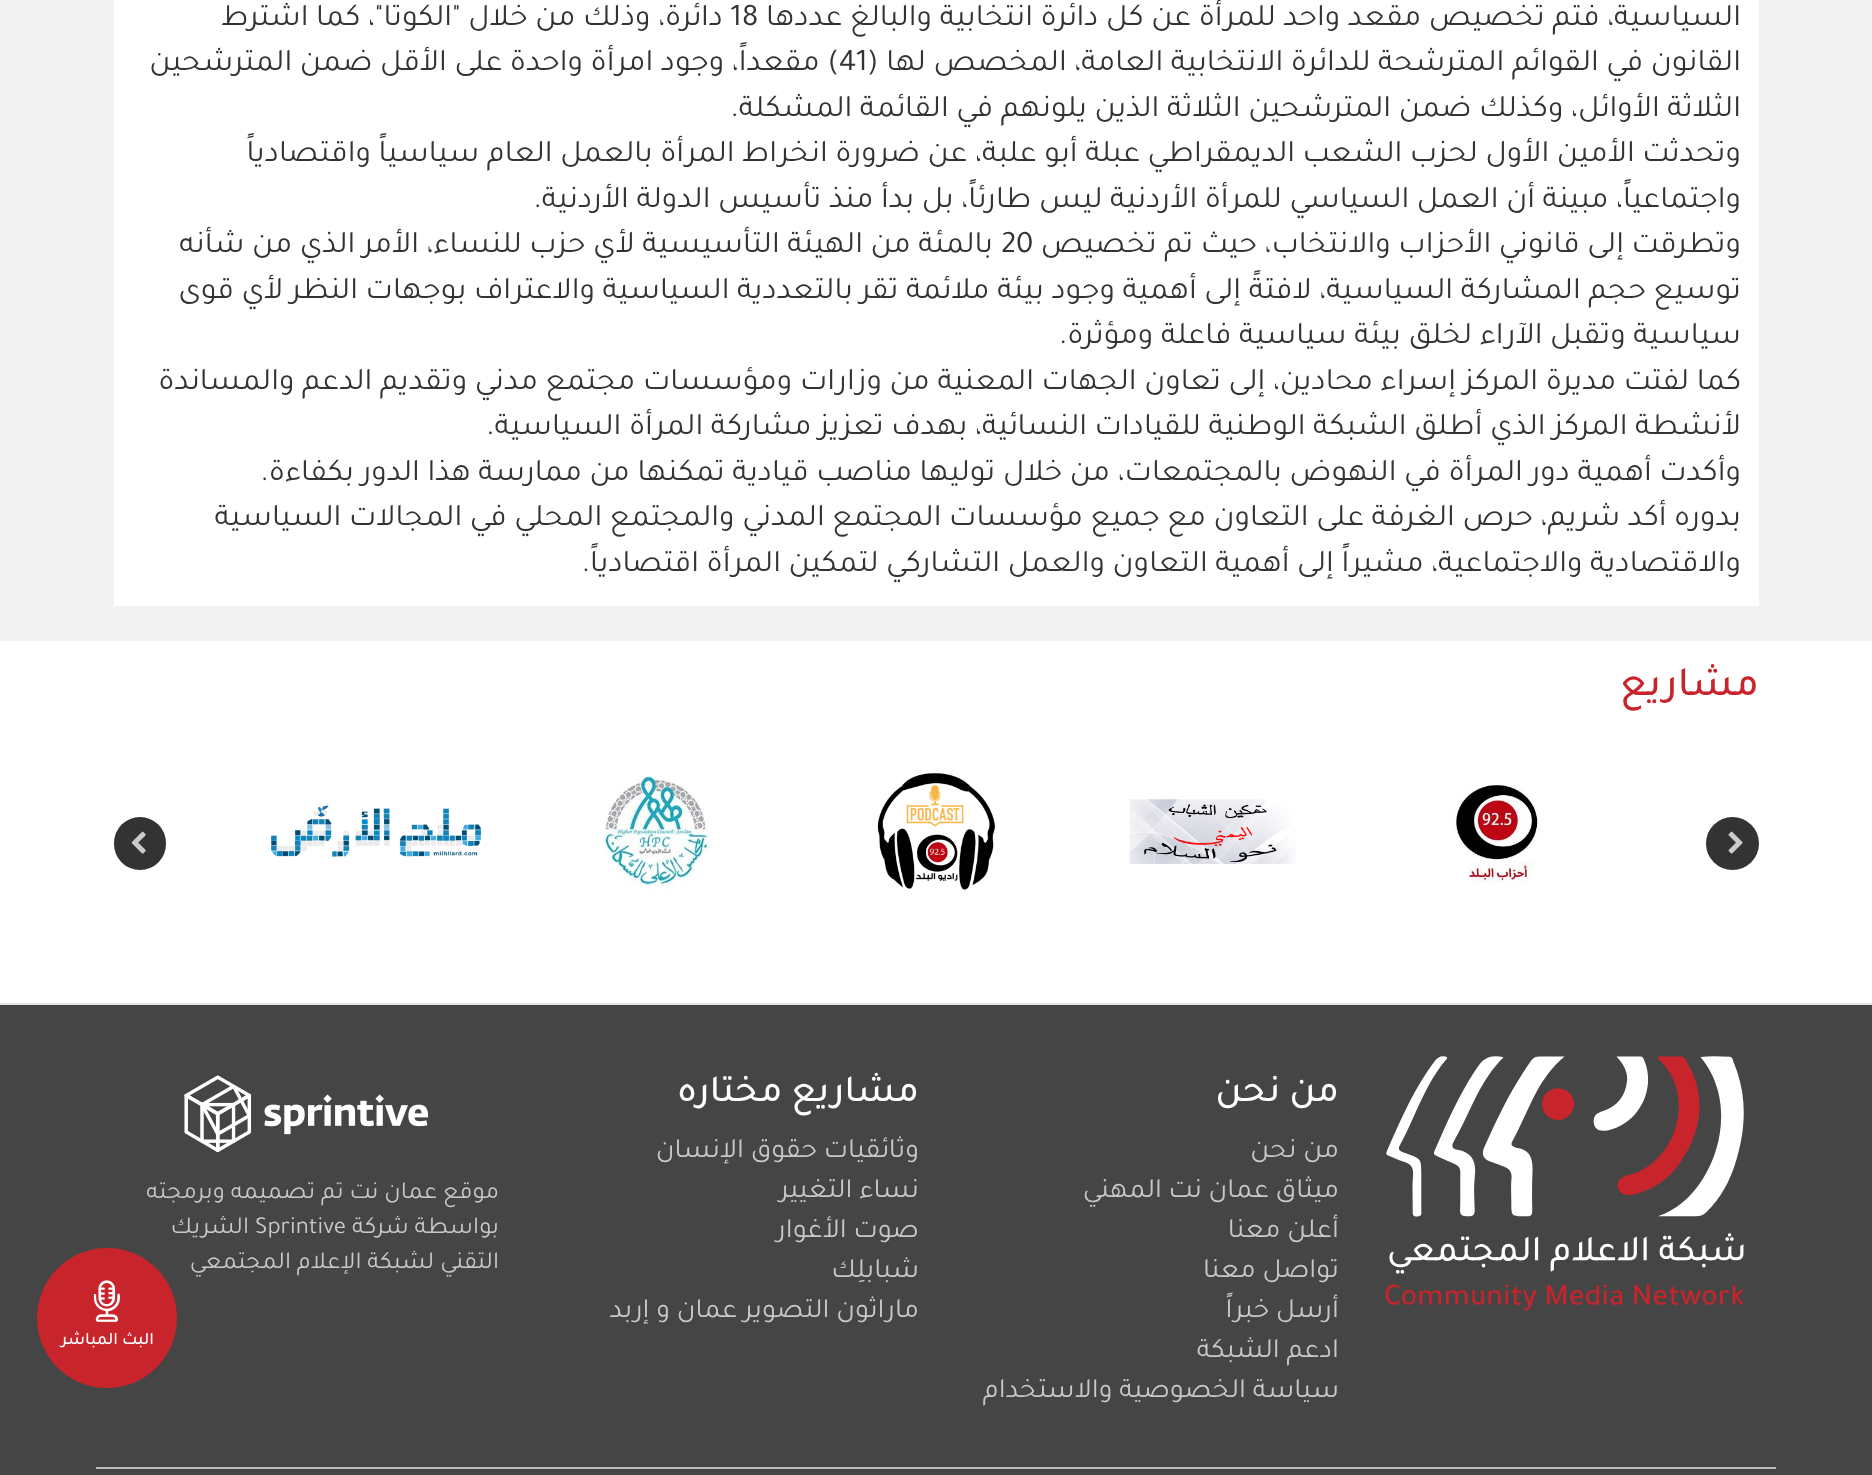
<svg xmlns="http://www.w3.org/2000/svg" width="1872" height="1475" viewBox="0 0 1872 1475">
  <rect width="100%" height="100%" fill="#f2f2f2"/>
  <path d="M114 0h1645v606H114z" fill="#fff"/>
  <path d="M0 641h1872v362H0z" fill="#fff"/>
  <image x="1454" y="785" width="86" height="97" href="img/1.png"/>
  <image x="1129" y="799" width="167" height="65" href="img/2.png"/>
  <image x="877" y="773" width="119" height="117" href="img/3.png"/>
  <image x="601" y="775" width="113" height="116" href="img/4.png"/>
  <image x="271" y="805" width="210" height="52" href="img/5.png"/>
  <circle cx="1732.5" cy="843.5" r="26.5" fill="#333"/>
  <image x="1728" y="831" width="15" height="23" href="img/6.png"/>
  <rect x="114" y="817" width="52" height="53" rx="26" fill="#333"/>
  <image x="131" y="831" width="15" height="23" href="img/7.png"/>
  <path d="M0 1005h1872v470H0z" fill="#454545"/>
  <path d="M0 1003h1872v2H0z" fill="#e5e5e5"/>
  <image x="1385" y="1056" width="359" height="255" href="img/8.png"/>
  <image x="184" y="1075" width="245" height="78" href="img/9.png"/>
  <path d="M96 1467h1680v2H96z" fill="#bcbcbc"/>
  <circle cx="107" cy="1318" r="70" fill="#c8242b"/>
  <image x="93" y="1280" width="27" height="42" href="img/10.png"/>
  <text x="1741" y="25" font-family="Tajawal" font-size="31.5" direction="rtl" fill="#333">السياسية، فتم تخصيص مقعد واحد للمرأة عن كل دائرة انتخابية والبالغ عددها</text>
  <text x="730" y="25" font-family="Tajawal" font-size="31.5" fill="#333">18</text>
  <g font-family="Tajawal" font-size="31.5" direction="rtl" fill="#333">
    <text x="723" y="25">دائرة، وذلك من خلال "الكوتا"، كما اشترط</text>
    <text x="1741" y="70">القانون في القوائم المترشحة للدائرة الانتخابية العامة، المخصص لها (</text>
  </g>
  <text x="839" y="70" font-family="Tajawal" font-size="31.5" fill="#333">41</text>
  <g font-family="Tajawal" font-size="31.5" direction="rtl" fill="#333">
    <text x="839" y="70">) مقعداً، وجود امرأة واحدة على الأقل ضمن المترشحين</text>
    <text x="1741" y="116">الثلاثة الأوائل، وكذلك ضمن المترشحين الثلاثة الذين يلونهم في القائمة المشكلة.</text>
    <text x="1741" y="161">وتحدثت الأمين الأول لحزب الشعب الديمقراطي عبلة أبو علبة، عن ضرورة انخراط المرأة بالعمل العام سياسياً واقتصادياً</text>
    <text x="1741" y="207">واجتماعياً، مبينة أن العمل السياسي للمرأة الأردنية ليس طارئاً، بل بدأ منذ تأسيس الدولة الأردنية.</text>
    <text x="1741" y="252">وتطرقت إلى قانوني الأحزاب والانتخاب، حيث تم تخصيص</text>
  </g>
  <text x="1001" y="252" font-family="Tajawal" font-size="31.5" fill="#333">20</text>
  <g font-family="Tajawal" font-size="31.5" direction="rtl" fill="#333">
    <text x="993" y="252">بالمئة من الهيئة التأسيسية لأي حزب للنساء، الأمر الذي من شأنه</text>
    <text x="1741" y="298">توسيع حجم المشاركة السياسية، لافتةً إلى أهمية وجود بيئة ملائمة تقر بالتعددية السياسية والاعتراف بوجهات النظر لأي قوى</text>
    <text x="1741" y="343">سياسية وتقبل الآراء لخلق بيئة سياسية فاعلة ومؤثرة.</text>
    <text x="1741" y="389">كما لفتت مديرة المركز إسراء محادين، إلى تعاون الجهات المعنية من وزارات ومؤسسات مجتمع مدني وتقديم الدعم والمساندة</text>
    <text x="1741" y="434">لأنشطة المركز الذي أطلق الشبكة الوطنية للقيادات النسائية، بهدف تعزيز مشاركة المرأة السياسية.</text>
    <text x="1741" y="480">وأكدت أهمية دور المرأة في النهوض بالمجتمعات، من خلال توليها مناصب قيادية تمكنها من ممارسة هذا الدور بكفاءة.</text>
    <text x="1741" y="525">بدوره أكد شريم، حرص الغرفة على التعاون مع جميع مؤسسات المجتمع المدني والمجتمع المحلي في المجالات السياسية</text>
    <text x="1741" y="571">والاقتصادية والاجتماعية، مشيراً إلى أهمية التعاون والعمل التشاركي لتمكين المرأة اقتصادياً.</text>
  </g>
  <text x="1759" y="695" font-family="Tajawal" font-size="42" font-weight="500" direction="rtl" fill="#c8242b">مشاريع</text>
  <text x="1339" y="1101" font-family="Tajawal" font-size="38.5" font-weight="500" direction="rtl" fill="#fff">من نحن</text>
  <g font-family="Tajawal" font-size="28" direction="rtl" fill="#c8c8c8">
    <text x="1339" y="1157">من نحن</text>
    <text x="1339" y="1197">ميثاق عمان نت المهني</text>
    <text x="1339" y="1237">أعلن معنا</text>
    <text x="1339" y="1277">تواصل معنا</text>
    <text x="1339" y="1317">أرسل خبراً</text>
    <text x="1339" y="1357">ادعم الشبكة</text>
    <text x="1339" y="1397">سياسة الخصوصية والاستخدام</text>
  </g>
  <text x="919" y="1101" font-family="Tajawal" font-size="38.5" font-weight="500" direction="rtl" fill="#fff">مشاريع مختاره</text>
  <g font-family="Tajawal" font-size="28" direction="rtl" fill="#c8c8c8">
    <text x="919" y="1157">وثائقيات حقوق الإنسان</text>
    <text x="919" y="1197">نساء التغيير</text>
    <text x="919" y="1237">صوت الأغوار</text>
    <text x="919" y="1277">شبابلِك</text>
    <text x="919" y="1317">ماراثون التصوير عمان و إربد</text>
  </g>
  <g font-family="Tajawal" font-size="24.5" direction="rtl" fill="#c8c8c8">
    <text x="499" y="1198">موقع عمان نت تم تصميمه وبرمجته</text>
    <text x="499" y="1233">بواسطة شركة</text>
  </g>
  <text x="255" y="1233" font-family="Tajawal" font-size="24.5" fill="#c8c8c8">Sprintive</text>
  <g font-family="Tajawal" font-size="24.5" direction="rtl" fill="#c8c8c8">
    <text x="249" y="1233">الشريك</text>
    <text x="499" y="1268">التقني</text>
    <text x="434" y="1268">لشبكة الإعلام المجتمعي</text>
  </g>
  <text x="154" y="1344" font-family="Tajawal" font-size="17.5" font-weight="500" direction="rtl" fill="#fff">البث المباشر</text>
</svg>
